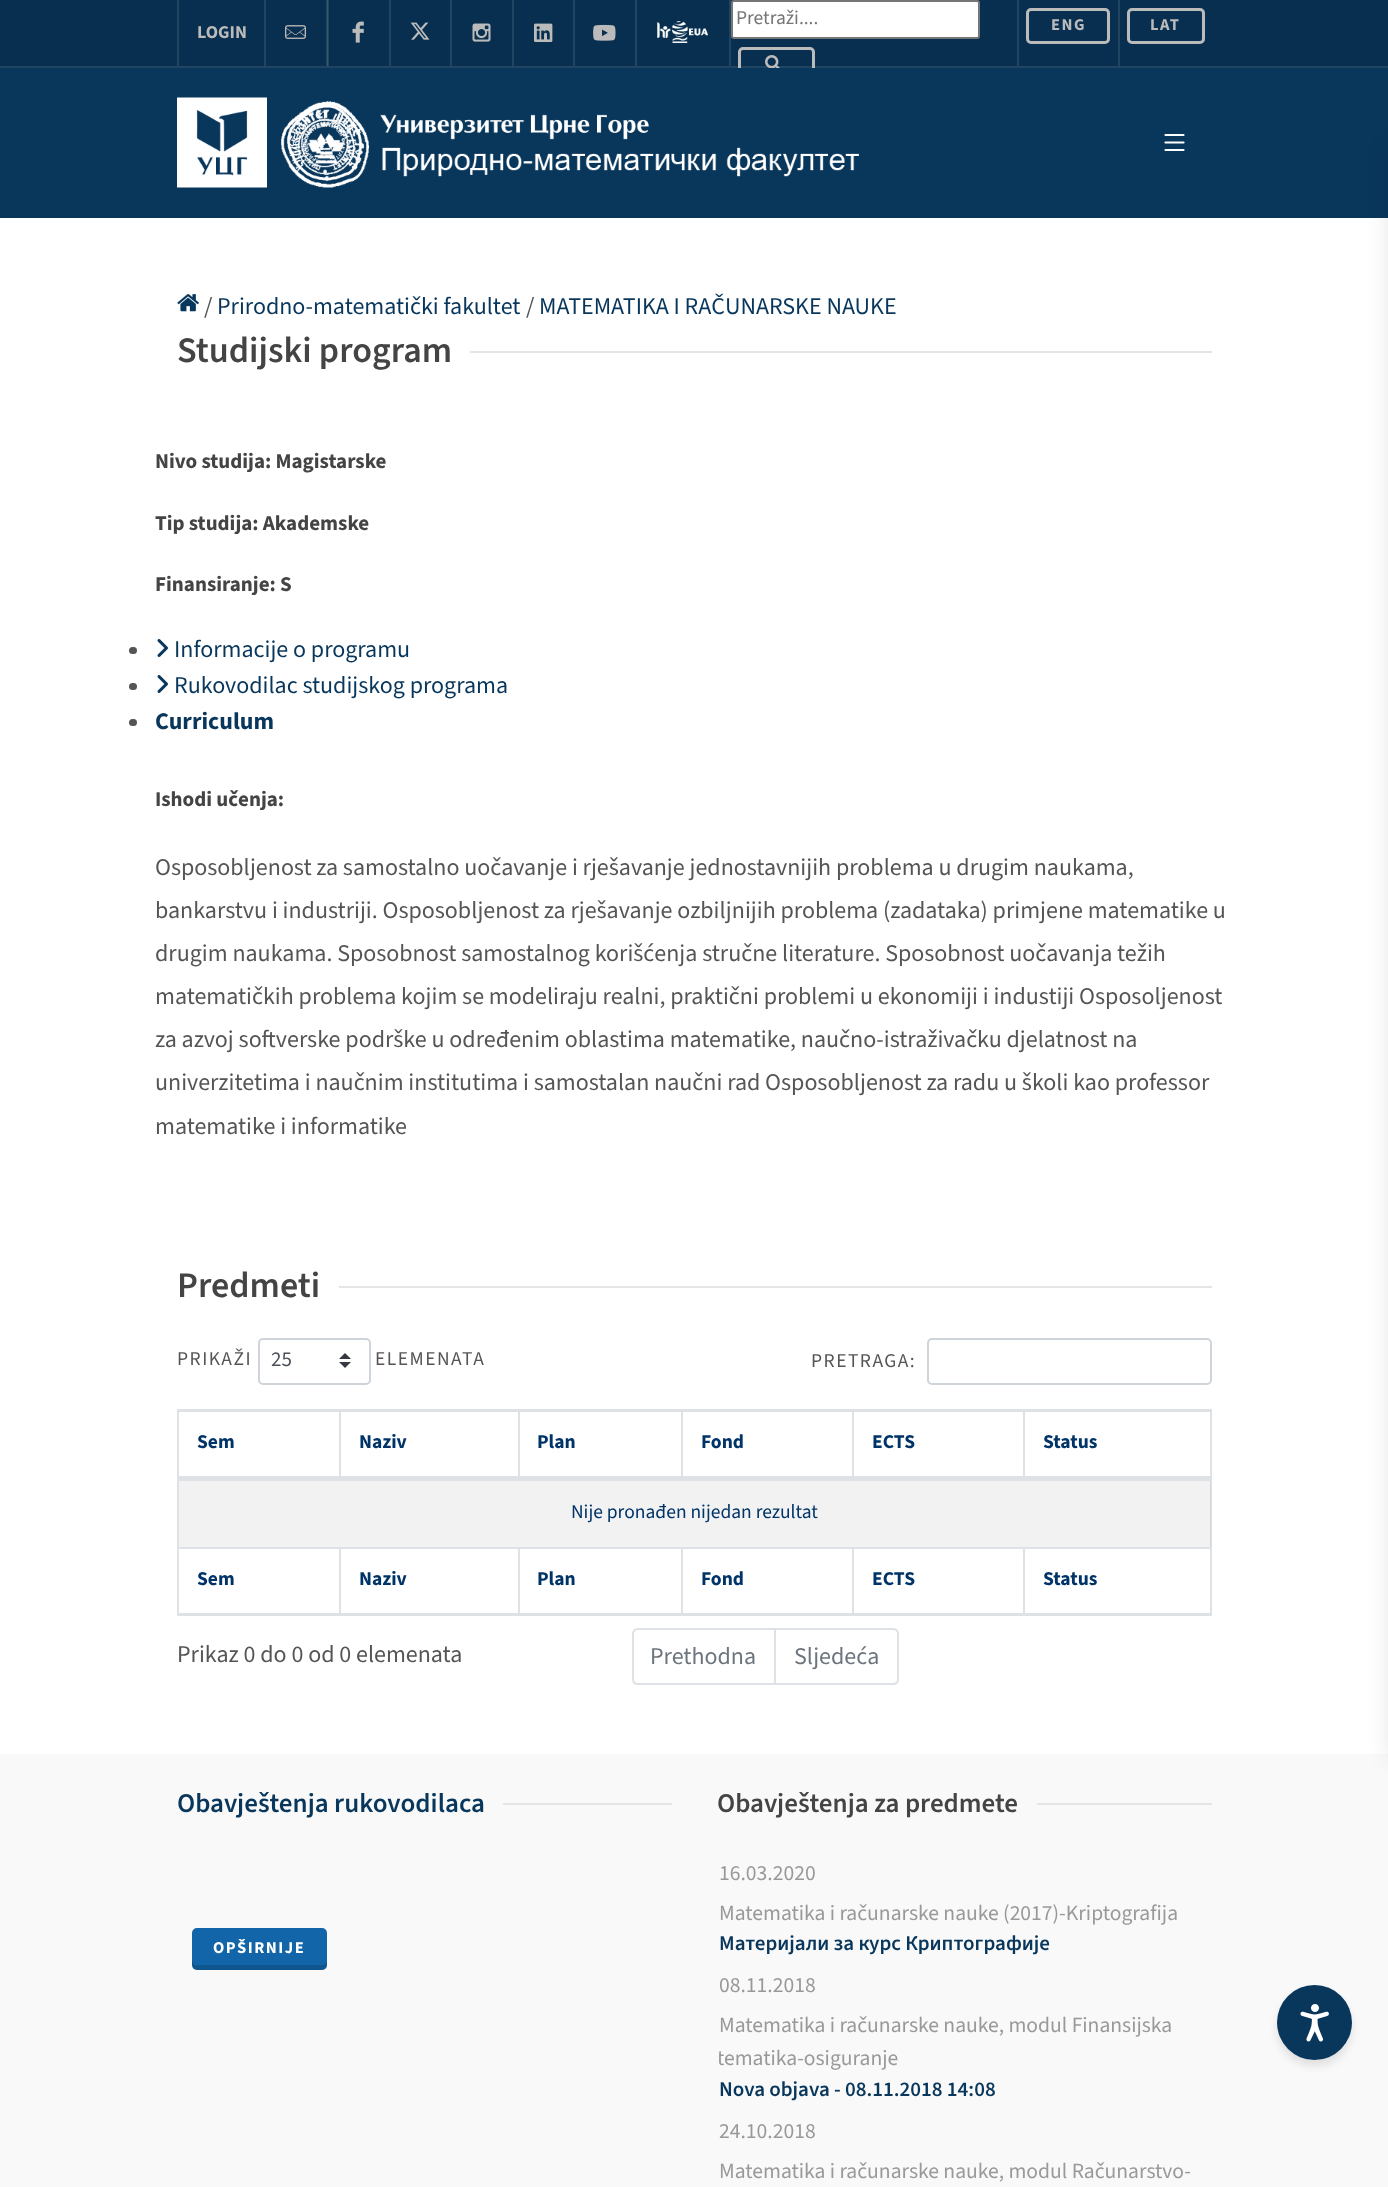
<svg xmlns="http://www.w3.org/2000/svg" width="1388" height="2187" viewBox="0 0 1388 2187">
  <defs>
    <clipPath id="clip1"><path d="M719 1970h516v105H719z"/></clipPath>
  </defs>
  <rect width="100%" height="100%" fill="#fff"/>
  <path d="M0 0h1388v66H0z" fill="#082f4f"/>
  <path d="M328 0h1v66H328z" fill="#214461"/>
  <path d="M0 66h1388v2H0z" fill="#214461"/>
  <path d="M177 0h2v66H177z" fill="#214461"/>
  <path d="M264 0h2v66H264z" fill="#214461"/>
  <image x="285" y="25" width="21" height="14" href="img/1.png"/>
  <path d="M326 0h1v66H326z" fill="#214461"/>
  <path d="M327 0h1v66H327z" fill="#375771"/>
  <image x="352" y="21" width="12" height="22" href="img/2.png"/>
  <path d="M389 0h2v66H389z" fill="#214461"/>
  <image x="410" y="22" width="20" height="18" href="img/3.png"/>
  <path d="M450 0h2v66H450z" fill="#214461"/>
  <image x="472" y="23" width="19" height="19" href="img/4.png"/>
  <path d="M512 0h2v66H512z" fill="#214461"/>
  <image x="534" y="23" width="19" height="19" href="img/5.png"/>
  <path d="M573 0h2v66H573z" fill="#214461"/>
  <image x="593" y="24" width="23" height="17" href="img/6.png"/>
  <path d="M635 0h2v66H635z" fill="#214461"/>
  <image x="657" y="21" width="52" height="22" href="img/7.png"/>
  <path d="M729 0h2v66H729z" fill="#214461"/>
  <rect x="732" y="1" width="247" height="37" rx="2" fill="#fff" stroke="#767676" stroke-width="2"/>
  <rect x="739.5" y="48.5" width="74" height="34" rx="3.5" fill="none" stroke="#bbb" stroke-width="3"/>
  <image x="765" y="55" width="15" height="13" href="img/8.png"/>
  <path d="M1017 0h2v66H1017z" fill="#214461"/>
  <rect x="1027.5" y="9.5" width="81" height="33" rx="3.5" fill="none" stroke="#bbb" stroke-width="3"/>
  <path d="M1118 0h2v66H1118z" fill="#214461"/>
  <rect x="1128.5" y="9.5" width="75" height="33" rx="3.5" fill="none" stroke="#bbb" stroke-width="3"/>
  <path d="M0 68h1388v150H0z" fill="#09375c"/>
  <image x="177" y="97" width="682" height="91" href="img/9.png"/>
  <path d="M1165.5 135H1183.5M1165.5 142.5H1183.5M1183.5 150H1165.5" fill="none" stroke="#fff" stroke-width="2.2" stroke-linecap="round"/>
  <image x="177" y="294" width="22" height="18" href="img/10.png"/>
  <path d="M470 351h742v2H470z" fill="#e5e5e5"/>
  <rect x="129" y="647" width="8" height="7" rx="3.5" fill="#555"/>
  <image x="157" y="639" width="11" height="18" href="img/11.png"/>
  <rect x="129" y="683" width="8" height="7" rx="3.5" fill="#555"/>
  <image x="157" y="675" width="11" height="18" href="img/11.png"/>
  <rect x="129" y="719" width="8" height="7" rx="3.5" fill="#555"/>
  <path d="M339 1286h873v2H339z" fill="#e5e5e5"/>
  <image x="339" y="1353" width="12" height="15" href="img/12.png"/>
  <rect x="259" y="1339" width="111" height="45" rx="4" fill="none" stroke="#ced4da" stroke-width="2"/>
  <rect x="928" y="1339" width="283" height="45" rx="4" fill="none" stroke="#ced4da" stroke-width="2"/>
  <path d="M178 1410h1033v205H178z" fill="none" stroke="#dee2e6" stroke-width="2"/>
  <path d="M179 1411h340v1H179z" fill="#dee2e6"/>
  <path d="M339 1410h2v69H339z" fill="#dee2e6"/>
  <path d="M179 1476h162v3H179z" fill="#dee2e6"/>
  <path d="M518 1410h2v69H518z" fill="#dee2e6"/>
  <path d="M341 1476h178v3H341z" fill="#dee2e6"/>
  <path d="M519 1411h692v1H519z" fill="#dee2e6"/>
  <path d="M681 1410h2v69H681z" fill="#dee2e6"/>
  <path d="M519 1476h164v3H519z" fill="#dee2e6"/>
  <path d="M852 1410h2v69H852z" fill="#dee2e6"/>
  <path d="M683 1476h171v3H683z" fill="#dee2e6"/>
  <path d="M1023 1410h2v69H1023z" fill="#dee2e6"/>
  <path d="M854 1476h357v3H854z" fill="#dee2e6"/>
  <path d="M179 1481h1032v66H179z" fill="#0000000d"/>
  <path d="M179 1479h1032v2H179z" fill="#dee2e6"/>
  <path d="M179 1547h340v2H179z" fill="#dee2e6"/>
  <path d="M339 1547h2v67H339z" fill="#dee2e6"/>
  <path d="M179 1613h162v1H179z" fill="#dee2e6"/>
  <path d="M518 1547h2v67H518z" fill="#dee2e6"/>
  <path d="M341 1613h178v1H341z" fill="#dee2e6"/>
  <path d="M519 1547h692v2H519z" fill="#dee2e6"/>
  <path d="M681 1547h2v67H681z" fill="#dee2e6"/>
  <path d="M519 1613h164v1H519z" fill="#dee2e6"/>
  <path d="M852 1547h2v67H852z" fill="#dee2e6"/>
  <path d="M683 1613h171v1H683z" fill="#dee2e6"/>
  <path d="M1023 1547h2v67H1023z" fill="#dee2e6"/>
  <path d="M854 1613h357v1H854z" fill="#dee2e6"/>
  <path d="M638 1629H775V1684H638C635 1684 633 1682 633 1679V1634C633 1631 635 1629 638 1629Z" fill="none" stroke="#dee2e6" stroke-width="2"/>
  <path d="M775 1629H893C896 1629 898 1631 898 1634V1679C898 1682 896 1684 893 1684H775Z" fill="#fff" stroke="#dee2e6" stroke-width="2"/>
  <path d="M0 1754h1388v433H0z" fill="#f9f9f9"/>
  <path d="M503 1803h169v2H503z" fill="#e5e5e5"/>
  <rect x="192" y="1928" width="135" height="42" rx="5" fill="#1265a8"/>
  <path d="M192 1960V1965C192 1968 194 1970 197 1970H322C325 1970 327 1968 327 1965V1960C327 1963 325 1965 322 1965H196C194 1965 192 1963 192 1960Z" fill="#00000026"/>
  <path d="M1037 1803h175v2H1037z" fill="#e5e5e5"/>
  <rect x="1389" y="143" width="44" height="1618" rx="12" fill="#0000001a" filter="blur(11px)"/>
  <rect x="1277" y="1991" width="75" height="75" rx="37.5" fill="#0000001a" filter="blur(4.5px)"/>
  <circle cx="1314.5" cy="2022.5" r="37.5" fill="#09375c"/>
  <image x="1300" y="2004" width="29" height="38" href="img/13.png"/>
  <text x="197" y="38" font-family="'Source Sans 3'" font-size="18" font-weight="bold" fill="#bbb">LOGIN</text>
  <text x="736" y="24" font-family="'Source Sans 3'" font-size="19.5" fill="#757575">Pretraži....</text>
  <g font-family="'Source Sans 3'" font-size="16.5" font-weight="bold" letter-spacing="1.5" fill="#bbb">
    <text x="1051" y="30">ENG</text>
    <text x="1150" y="30">LAT</text>
  </g>
  <text x="204" y="314" font-family="'Source Sans 3'" font-size="24" fill="#555">/</text>
  <text x="217" y="314" font-family="'Source Sans 3'" font-size="24" fill="#09375c">Prirodno-matematički fakultet</text>
  <text x="526" y="314" font-family="'Source Sans 3'" font-size="24" fill="#555">/</text>
  <text x="539" y="314" font-family="'Source Sans 3'" font-size="24" fill="#09375c">MATEMATIKA I RAČUNARSKE NAUKE</text>
  <text x="177" y="362" font-family="'Source Sans 3'" font-size="36" font-weight="600" fill="#444">Studijski program</text>
  <g font-family="'Source Sans 3'" font-size="21" font-weight="bold" fill="#444">
    <text x="155" y="468">Nivo studija: Magistarske</text>
    <text x="155" y="530">Tip studija: Akademske</text>
    <text x="155" y="591">Finansiranje: S</text>
  </g>
  <g font-family="'Source Sans 3'" font-size="24" fill="#09375c">
    <text x="174" y="657">Informacije o programu</text>
    <text x="174" y="693">Rukovodilac studijskog programa</text>
  </g>
  <text x="155" y="729" font-family="'Source Sans 3'" font-size="24" font-weight="bold" fill="#09375c">Curriculum</text>
  <text x="155" y="806" font-family="'Source Sans 3'" font-size="21" font-weight="bold" fill="#444">Ishodi učenja:</text>
  <g font-family="'Source Sans 3'" font-size="24" fill="#555">
    <text x="155" y="875">Osposobljenost za samostalno uočavanje i rješavanje jednostavnijih problema u drugim naukama,</text>
    <text x="155" y="918">bankarstvu i industriji. Osposobljenost za rješavanje ozbiljnijih problema (zadataka) primjene matematike u</text>
    <text x="155" y="961">drugim naukama. Sposobnost samostalnog korišćenja stručne literature. Sposobnost uočavanja težih</text>
    <text x="155" y="1004">matematičkih problema kojim se modeliraju realni, praktični problemi u ekonomiji i industiji Osposoljenost</text>
    <text x="155" y="1047">za azvoj softverske podrške u određenim oblastima matematike, naučno-istraživačku djelatnost na</text>
    <text x="155" y="1090">univerzitetima i naučnim institutima i samostalan naučni rad Osposobljenost za radu u školi kao professor</text>
    <text x="155" y="1134">matematike i informatike</text>
  </g>
  <text x="177" y="1297" font-family="'Source Sans 3'" font-size="36" font-weight="600" fill="#444">Predmeti</text>
  <text x="177" y="1365" font-family="'Source Sans 3'" font-size="19.5" letter-spacing="1.5" fill="#555">PRIKAŽI</text>
  <text x="271" y="1366" font-family="'Source Sans 3'" font-size="21" fill="#495057">25</text>
  <g font-family="'Source Sans 3'" font-size="19.5" letter-spacing="1.5" fill="#555">
    <text x="375" y="1365">ELEMENATA</text>
    <text x="811" y="1367">PRETRAGA:</text>
  </g>
  <g font-family="'Source Sans 3'" font-size="19.5" font-weight="bold" fill="#003468">
    <text x="197" y="1448">Sem</text>
    <text x="359" y="1448">Naziv</text>
    <text x="537" y="1448">Plan</text>
    <text x="701" y="1448">Fond</text>
    <text x="872" y="1448">ECTS</text>
    <text x="1043" y="1448">Status</text>
  </g>
  <text x="571" y="1518" font-family="'Source Sans 3'" font-size="19.5" fill="#003468">Nije pronađen nijedan rezultat</text>
  <g font-family="'Source Sans 3'" font-size="19.5" font-weight="bold" fill="#003468">
    <text x="197" y="1585">Sem</text>
    <text x="359" y="1585">Naziv</text>
    <text x="537" y="1585">Plan</text>
    <text x="701" y="1585">Fond</text>
    <text x="872" y="1585">ECTS</text>
    <text x="1043" y="1585">Status</text>
  </g>
  <text x="177" y="1662" font-family="'Source Sans 3'" font-size="24" fill="#555">Prikaz 0 do 0 od 0 elemenata</text>
  <g font-family="'Source Sans 3'" font-size="24" fill="#6c757d">
    <text x="650" y="1664">Prethodna</text>
    <text x="794" y="1664">Sljedeća</text>
  </g>
  <text x="177" y="1812" font-family="'Source Sans 3'" font-size="27" font-weight="600" fill="#09375c">Obavještenja rukovodilaca</text>
  <text x="213" y="1953" font-family="'Source Sans 3'" font-size="16.5" font-weight="bold" letter-spacing="1.5" fill="#fff">OPŠIRNIJE</text>
  <text x="717" y="1812" font-family="'Source Sans 3'" font-size="27" font-weight="600" fill="#444">Obavještenja za predmete</text>
  <g font-family="'Source Sans 3'" font-size="21.6" fill="#999">
    <text x="719" y="1880">16.03.2020</text>
    <text x="719" y="1920">Matematika i računarske nauke (2017)-Kriptografija</text>
  </g>
  <text x="719" y="1950" font-family="'Source Sans 3'" font-size="21" font-weight="600" fill="#09375c">Материјали за курс Криптографије</text>
  <g font-family="'Source Sans 3'" font-size="21.6" fill="#999">
    <text x="719" y="1992">08.11.2018</text>
    <text x="719" y="2032">Matematika i računarske nauke, modul Finansijska</text>
  </g>
  <g clip-path="url(#clip1)">
    <text x="717" y="2065" font-family="'Source Sans 3'" font-size="21.6" fill="#999">tematika-osiguranje</text>
  </g>
  <text x="719" y="2096" font-family="'Source Sans 3'" font-size="21" font-weight="600" fill="#09375c">Nova objava - 08.11.2018 14:08</text>
  <g font-family="'Source Sans 3'" font-size="21.6" fill="#999">
    <text x="719" y="2138">24.10.2018</text>
    <text x="719" y="2178">Matematika i računarske nauke, modul Računarstvo-</text>
  </g>
</svg>
